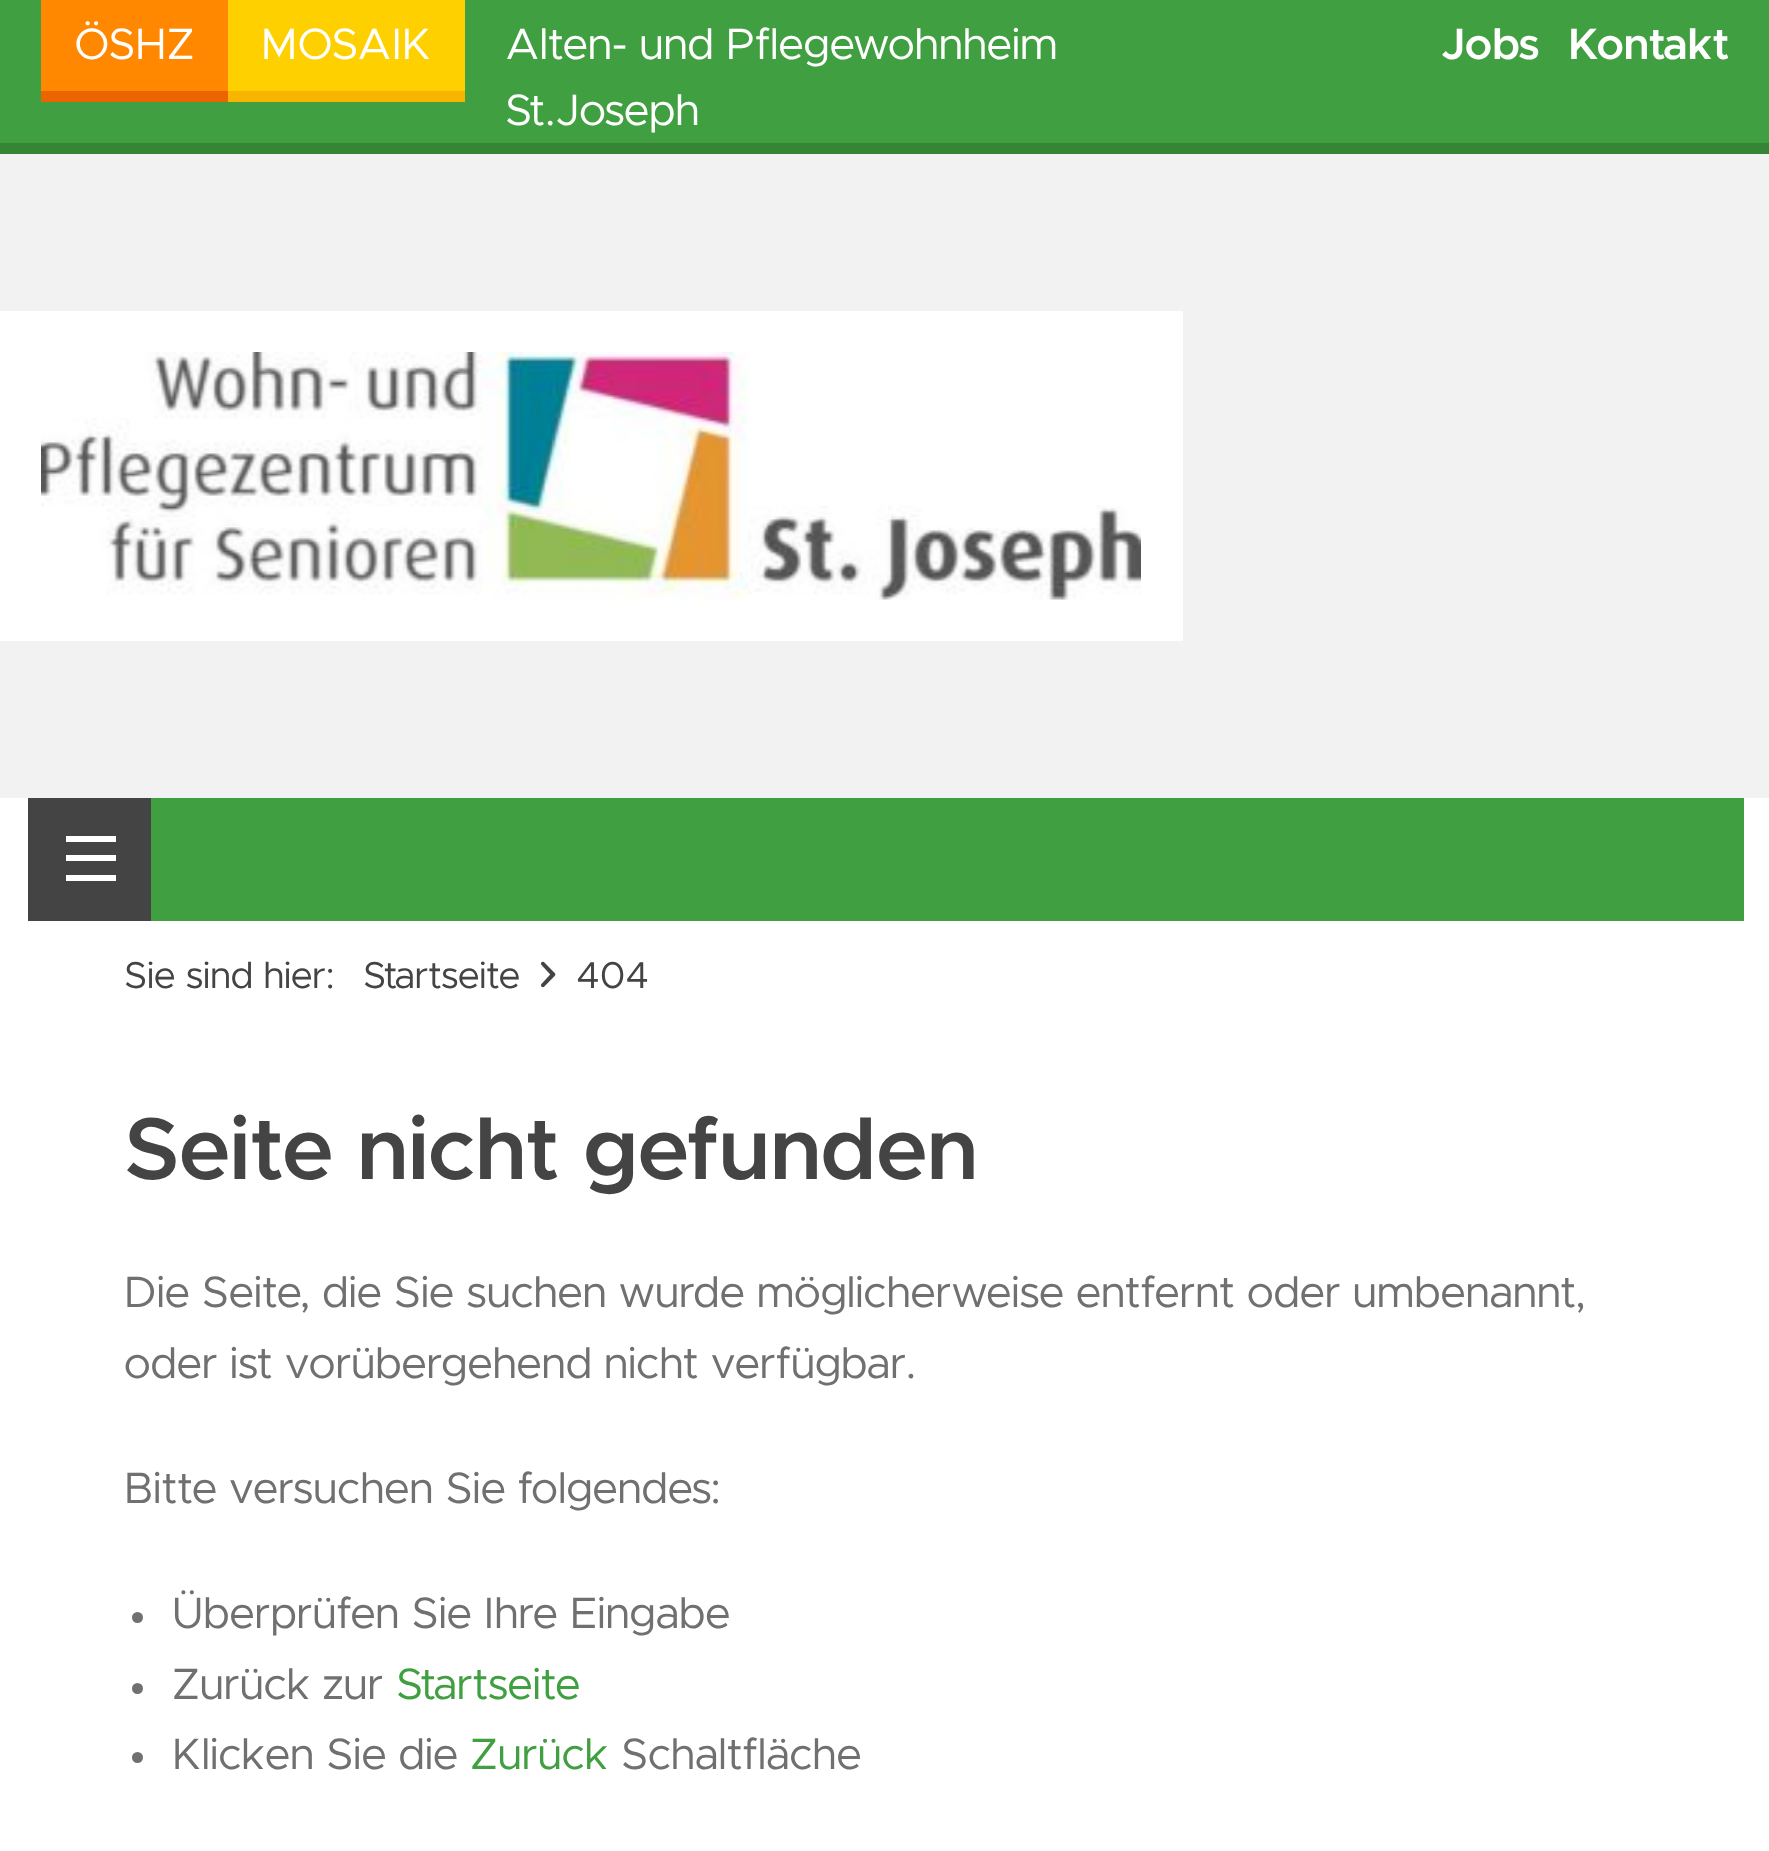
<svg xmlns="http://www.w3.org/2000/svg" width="1769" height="1851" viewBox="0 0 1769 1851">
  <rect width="100%" height="100%" fill="#f2f2f2"/>
  <path d="M0 0h1769v143H0z" fill="#409f40"/>
  <path d="M0 143h1769v11H0z" fill="#358535"/>
  <path d="M41 0h187v91H41z" fill="#f80"/>
  <path d="M41 91h187v11H41z" fill="#ea6500"/>
  <path d="M228 0h237v91H228z" fill="#ffd000"/>
  <path d="M228 91h237v11H228z" fill="#f7b500"/>
  <path d="M0 311h1183v330H0z" fill="#fff"/>
  <image x="41" y="352" width="1100" height="248" href="img/1.png"/>
  <path d="M0 798h1769v1053H0z" fill="#fff"/>
  <path d="M151 798h1593v123H151z" fill="#409f40"/>
  <path d="M28 798h123v123H28z" fill="#444"/>
  <path d="M66 875h50v6H66z" fill="#fff"/>
  <path d="M66 855h50v6H66z" fill="#fff"/>
  <path d="M66 836h50v6H66z" fill="#fff"/>
  <image x="541" y="961" width="15" height="27" href="img/2.png"/>
  <circle cx="137.5" cy="1617.5" r="5.5" fill="#707070"/>
  <circle cx="137.5" cy="1688.5" r="5.5" fill="#707070"/>
  <circle cx="137.5" cy="1757.5" r="5.5" fill="#707070"/>
  <g font-family="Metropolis" font-size="44" fill="#fff">
    <text x="74" y="59">ÖSHZ</text>
    <text x="261" y="59">MOSAIK</text>
    <text x="505" y="59">Alten- und Pflegewohnheim</text>
    <text x="505" y="125">St.Joseph</text>
  </g>
  <g font-family="Metropolis" font-size="44" font-weight="600" fill="#fff">
    <text x="1441" y="59">Jobs</text>
    <text x="1568" y="59">Kontakt</text>
  </g>
  <g font-family="Metropolis" font-size="37.5" fill="#444">
    <text x="124" y="988">Sie sind hier:</text>
    <text x="363" y="988">Startseite</text>
    <text x="576" y="988">404</text>
  </g>
  <text x="124" y="1179" font-family="Metropolis" font-size="88" font-weight="600" fill="#444">Seite nicht gefunden</text>
  <g font-family="Metropolis" font-size="44" fill="#707070">
    <text x="124" y="1307">Die Seite, die Sie suchen wurde möglicherweise entfernt oder umbenannt,</text>
    <text x="124" y="1378">oder ist vorübergehend nicht verfügbar.</text>
    <text x="124" y="1503">Bitte versuchen Sie folgendes:</text>
    <text x="172" y="1628">Überprüfen Sie Ihre Eingabe</text>
    <text x="172" y="1699">Zurück zur</text>
  </g>
  <text x="396" y="1699" font-family="Metropolis" font-size="44" fill="#409f40">Startseite</text>
  <text x="172" y="1769" font-family="Metropolis" font-size="44" fill="#707070">Klicken Sie die</text>
  <text x="470" y="1769" font-family="Metropolis" font-size="44" fill="#409f40">Zurück</text>
  <text x="621" y="1769" font-family="Metropolis" font-size="44" fill="#707070">Schaltfläche</text>
</svg>
